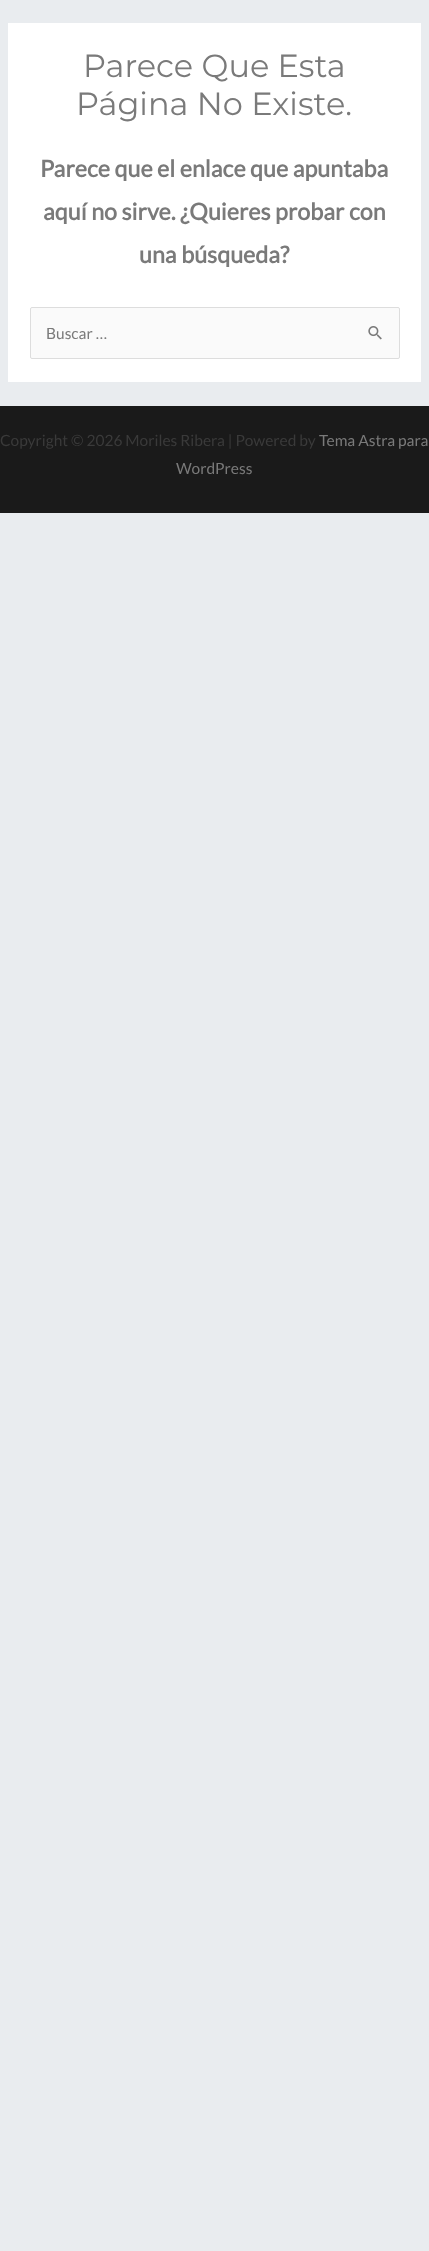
<svg xmlns="http://www.w3.org/2000/svg" width="429" height="2251" viewBox="0 0 429 2251">
  <rect width="100%" height="100%" fill="#e9ecef"/>
  <path d="M8 23h413v359H8z" fill="#fff"/>
  <rect x="30.5" y="307.5" width="369" height="51" rx="1.5" fill="#fafafa" stroke="#ddd"/>
  <image x="368" y="326" width="14" height="14" href="img/1.png"/>
  <path d="M0 406h429v107H0z" fill="#1a1a1a"/>
  <g font-family="Montserrat" font-size="32" fill="#7a7a7a">
    <text x="83" y="77">Parece Que Esta</text>
    <text x="76" y="115">Página No Existe.</text>
  </g>
  <g font-family="Lato" font-size="23.25" font-weight="bold" fill="#7a7a7a">
    <text x="40" y="177">Parece que el enlace que apuntaba</text>
    <text x="43" y="220">aquí no sirve. ¿Quieres probar con</text>
    <text x="139" y="263">una búsqueda?</text>
  </g>
  <text x="46" y="339" font-family="Lato" font-size="15.5" fill="#7a7a7a">Buscar …</text>
  <text x="0" y="446" font-family="Lato" font-size="15.5" fill="#3a3a3a">Copyright © 2026 Moriles Ribera | Powered by</text>
  <g font-family="Lato" font-size="15.5" fill="#7a7a7a">
    <text x="319" y="446">Tema Astra para</text>
    <text x="176" y="474">WordPress</text>
  </g>
</svg>
